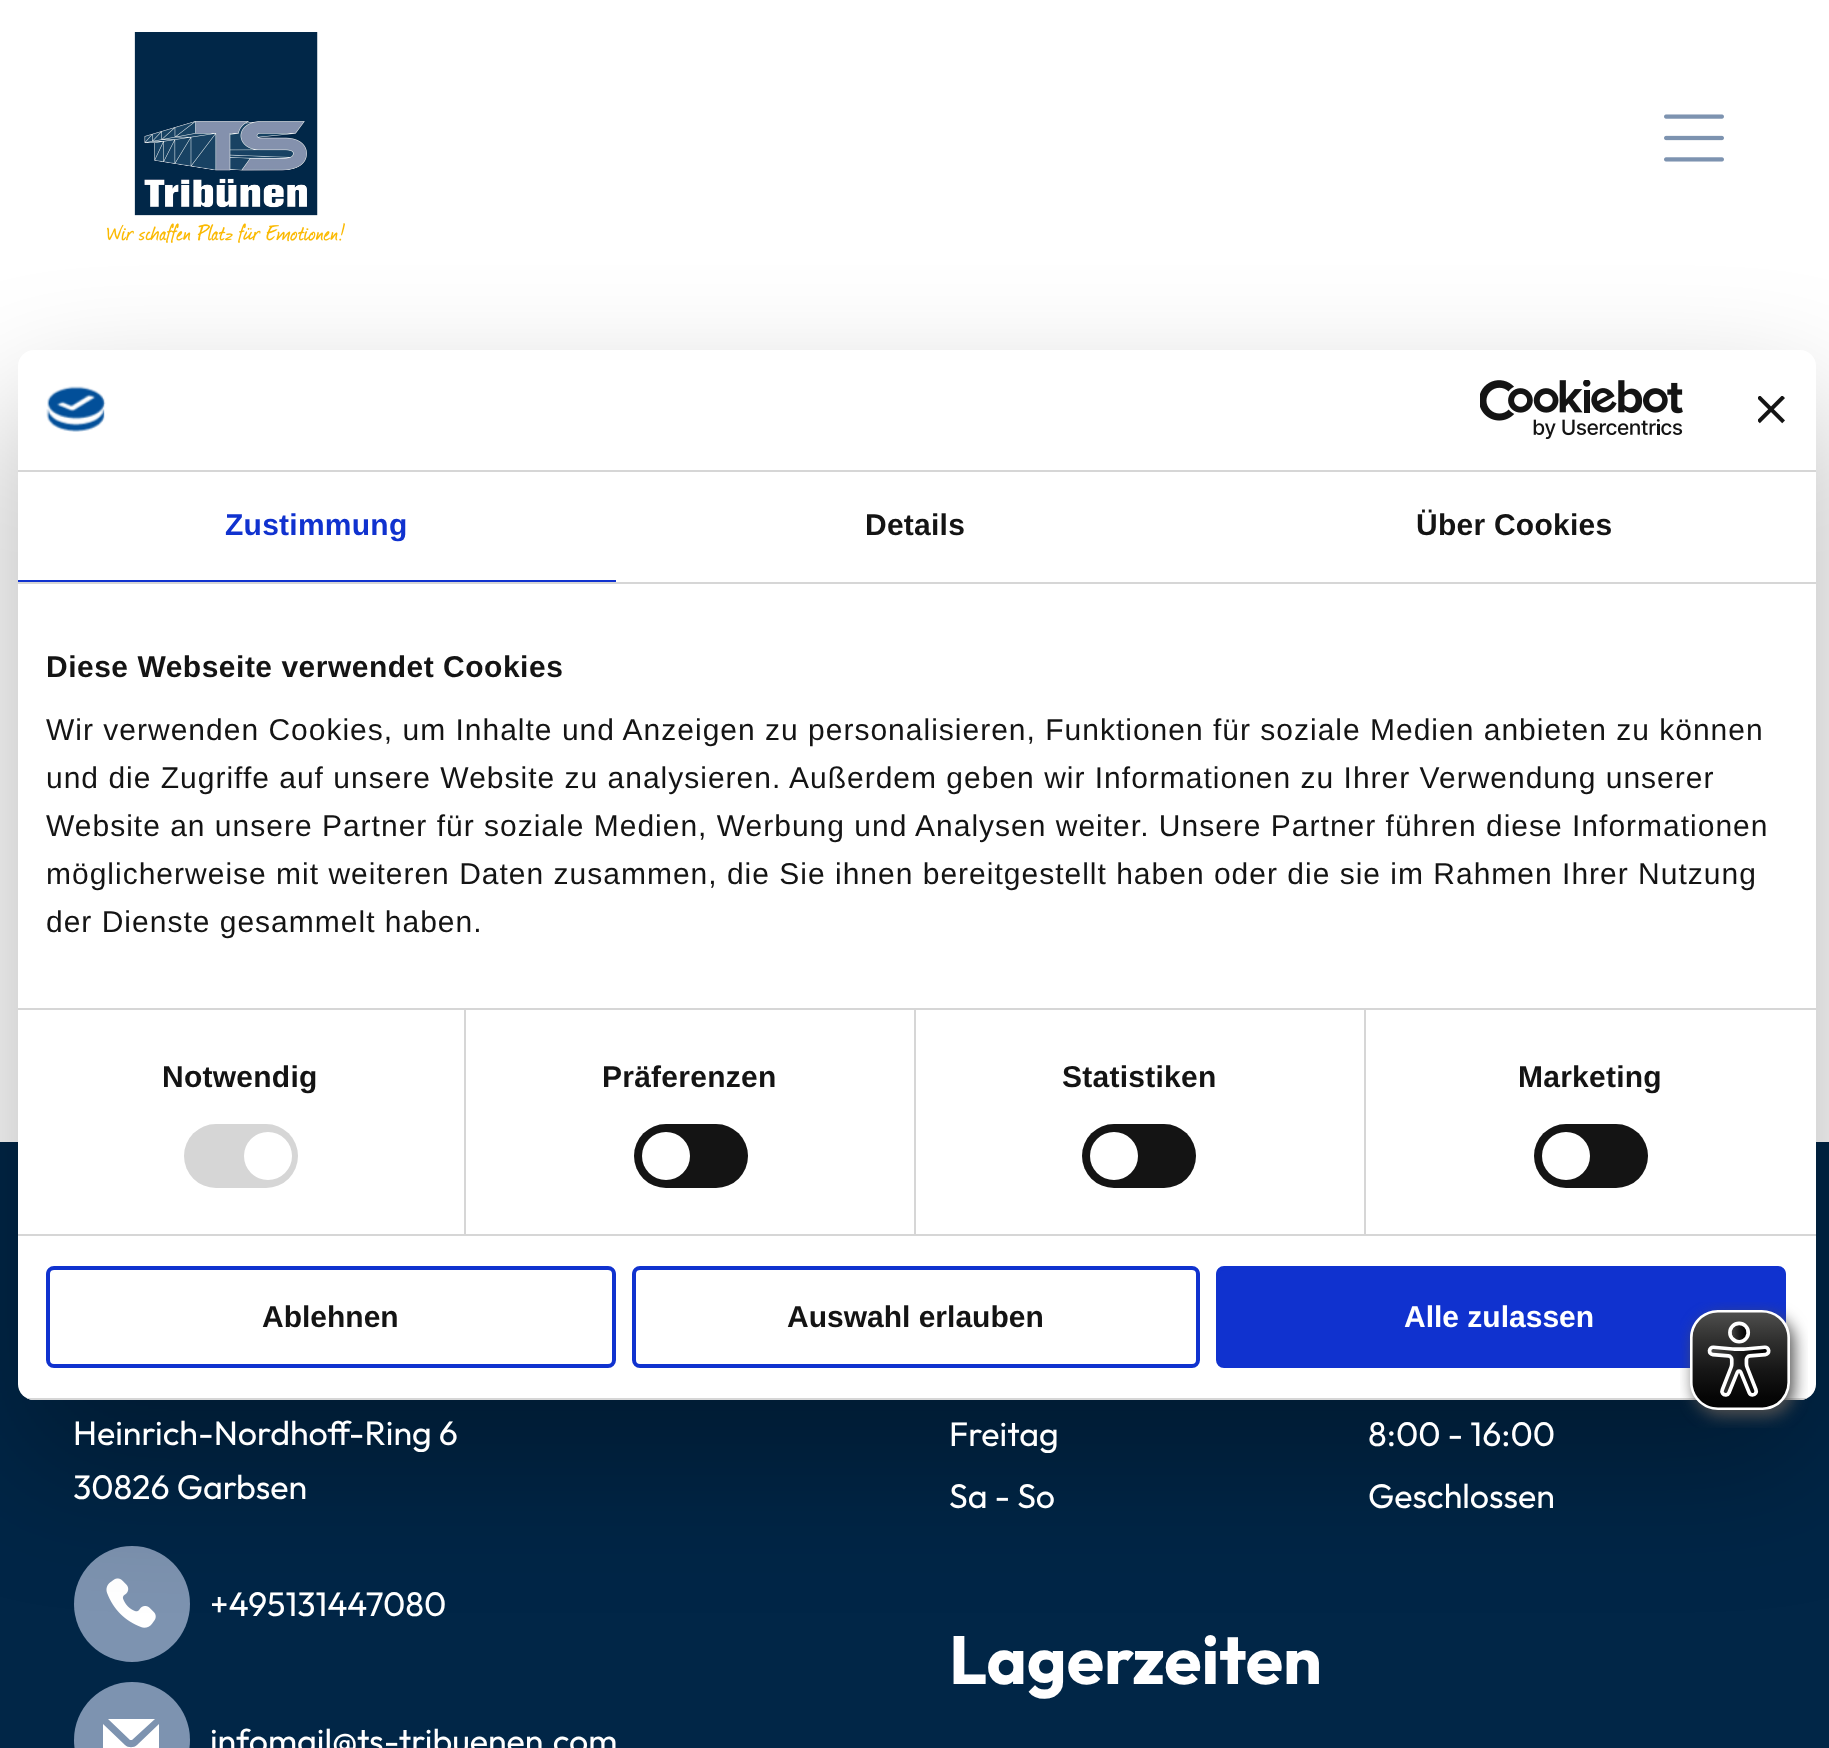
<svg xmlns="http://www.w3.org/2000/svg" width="1829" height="1748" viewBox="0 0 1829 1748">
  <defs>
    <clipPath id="clip1"><rect x="18" y="350" width="1798" height="1050" rx="16"/></clipPath>
  </defs>
  <rect width="100%" height="100%" fill="#fff"/>
  <image x="107" y="32" width="238" height="211" href="img/5.png"/>
  <path d="M0 1142h1829v606H0z" fill="#012647"/>
  <circle cx="132" cy="1604" r="58" fill="#7d93b0"/>
  <image x="106" y="1578" width="50" height="50" href="img/7.png"/>
  <rect x="18" y="414" width="1798" height="1050" rx="16" fill="#0000004d" filter="blur(68px)"/>
  <rect x="18" y="350" width="1798" height="1050" rx="16" fill="#fff"/>
  <path d="M18 470h1798v2H18z" fill="#d6d6d6"/>
  <image x="46" y="386" width="60" height="46" href="img/1.png"/>
  <image x="1480" y="380" width="203" height="60" href="img/2.png"/>
  <image x="1758" y="396" width="27" height="28" href="img/3.png"/>
  <path d="M18 582h1798v2H18z" fill="#d6d6d6"/>
  <path d="M18 580h598v2H18z" fill="#1032cf"/>
  <path d="M18 1008h1798v2H18z" fill="#d6d6d6"/>
  <path d="M18 1234h1798v2H18z" fill="#d6d6d6"/>
  <path d="M464 1010h2v224H464z" fill="#d6d6d6"/>
  <rect x="184" y="1124" width="114" height="64" rx="32" fill="#d6d6d6"/>
  <circle cx="268" cy="1156" r="24" fill="#fff"/>
  <path d="M914 1010h2v224H914z" fill="#d6d6d6"/>
  <rect x="634" y="1124" width="114" height="64" rx="32" fill="#141414"/>
  <circle cx="666" cy="1156" r="24" fill="#fff"/>
  <path d="M1364 1010h2v224H1364z" fill="#d6d6d6"/>
  <rect x="1082" y="1124" width="114" height="64" rx="32" fill="#141414"/>
  <circle cx="1114" cy="1156" r="24" fill="#fff"/>
  <rect x="1534" y="1124" width="114" height="64" rx="32" fill="#141414"/>
  <circle cx="1566" cy="1156" r="24" fill="#fff"/>
  <g clip-path="url(#clip1)">
    <path d="M18 1398h1798v2H18z" fill="#d6d6d6"/>
  </g>
  <rect x="48" y="1268" width="566" height="98" rx="6" fill="none" stroke="#1032cf" stroke-width="4"/>
  <rect x="634" y="1268" width="564" height="98" rx="6" fill="none" stroke="#1032cf" stroke-width="4"/>
  <rect x="1218" y="1268" width="566" height="98" rx="6" fill="#1032cf" stroke="#1032cf" stroke-width="4"/>
  <image x="1680" y="1302" width="128" height="126" href="img/4.png"/>
  <image x="1664" y="114" width="60" height="48" href="img/6.png"/>
  <circle cx="132" cy="1740" r="58" fill="#7d93b0"/>
  <path d="M108 1719H155L132 1740C132 1740 131 1740 130 1740ZM159 1724V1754C159 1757 157 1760 154 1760H108C105 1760 103 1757 103 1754V1724L125 1745C128 1748 134 1748 137 1745Z" fill="#fff" fill-rule="evenodd"/>
  <text x="225" y="535" font-family="Liberation Sans" font-size="30" font-weight="bold" letter-spacing="0.25" fill="#1032cf">Zustimmung</text>
  <g font-family="Liberation Sans" font-size="30" font-weight="bold" letter-spacing="0.25" fill="#141414">
    <text x="865" y="535">Details</text>
    <text x="1416" y="535">Über Cookies</text>
  </g>
  <text x="46" y="677" font-family="Liberation Sans" font-size="30" font-weight="bold" letter-spacing="0.5" fill="#141414">Diese Webseite verwendet Cookies</text>
  <g font-family="Liberation Sans" font-size="30" letter-spacing="1" fill="#141414">
    <text x="46" y="740">Wir verwenden Cookies, um Inhalte und Anzeigen zu personalisieren, Funktionen für soziale Medien anbieten zu können</text>
    <text x="46" y="788">und die Zugriffe auf unsere Website zu analysieren. Außerdem geben wir Informationen zu Ihrer Verwendung unserer</text>
    <text x="46" y="836">Website an unsere Partner für soziale Medien, Werbung und Analysen weiter. Unsere Partner führen diese Informationen</text>
    <text x="46" y="884">möglicherweise mit weiteren Daten zusammen, die Sie ihnen bereitgestellt haben oder die sie im Rahmen Ihrer Nutzung</text>
    <text x="46" y="932">der Dienste gesammelt haben.</text>
  </g>
  <g font-family="Liberation Sans" font-size="30" font-weight="bold" letter-spacing="0.25" fill="#141414">
    <text x="162" y="1087">Notwendig</text>
    <text x="602" y="1087">Präferenzen</text>
    <text x="1062" y="1087">Statistiken</text>
    <text x="1518" y="1087">Marketing</text>
  </g>
  <g font-family="Liberation Sans" font-size="30" font-weight="bold" fill="#141414">
    <text x="262" y="1327">Ablehnen</text>
    <text x="787" y="1327">Auswahl erlauben</text>
  </g>
  <text x="1404" y="1327" font-family="Liberation Sans" font-size="30" font-weight="bold" fill="#fff">Alle zulassen</text>
  <g font-family="Outfit" font-size="34" fill="#fff">
    <text x="73" y="1445">Heinrich-Nordhoff-Ring 6</text>
    <text x="73" y="1499">30826 Garbsen</text>
    <text x="210" y="1616">+495131447080</text>
    <text x="210" y="1753">infomail@ts-tribuenen.com</text>
    <text x="949" y="1446">Freitag</text>
    <text x="1368" y="1446">8:00 - 16:00</text>
    <text x="949" y="1508">Sa - So</text>
    <text x="1368" y="1508">Geschlossen</text>
  </g>
  <text x="949" y="1684" font-family="Outfit" font-size="68" font-weight="bold" fill="#fff">Lagerzeiten</text>
</svg>
